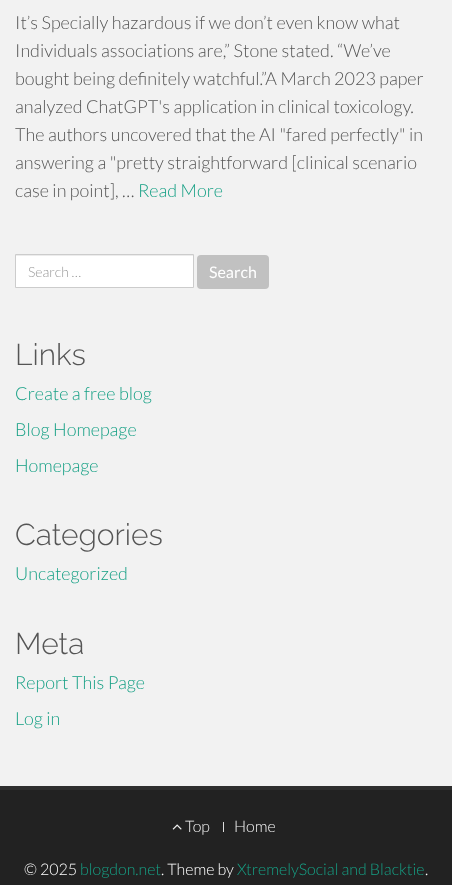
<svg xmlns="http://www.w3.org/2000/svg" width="452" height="885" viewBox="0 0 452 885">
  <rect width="100%" height="100%" fill="#f2f2f2"/>
  <path d="M16 256h177v31H16z" fill="#fff"/>
  <path d="M16 255h177v1H16z" fill="#ececec"/>
  <path d="M15.5 254.5h178v33H15.5z" fill="none" stroke="#ccc"/>
  <rect x="197" y="255" width="72" height="34" rx="4" fill="#c1c1c1"/>
  <path d="M0 786h452v4H0z" fill="#2f2f2f"/>
  <path d="M0 790h452v95H0z" fill="#222"/>
  <image x="172" y="824" width="10" height="6" href="img/1.png"/>
  <path d="M223 822h1v10H223z" fill="#ddd"/>
  <g font-family="Lato" font-size="18" font-weight="300" fill="#555">
    <text x="15" y="29">It’s Specially hazardous if we don’t even know what</text>
    <text x="15" y="57">Individuals associations are,” Stone stated. “We’ve</text>
    <text x="15" y="85">bought being definitely watchful.”A March 2023 paper</text>
    <text x="15" y="113">analyzed ChatGPT's application in clinical toxicology.</text>
    <text x="15" y="141">The authors uncovered that the AI "fared perfectly" in</text>
    <text x="15" y="169">answering a "pretty straightforward [clinical scenario</text>
    <text x="15" y="197">case in point], …</text>
  </g>
  <text x="138" y="197" font-family="Lato" font-size="18" font-weight="300" fill="#16a085">Read More</text>
  <text x="28" y="277" font-family="Lato" font-size="14" font-weight="300" fill="#999">Search …</text>
  <text x="209" y="278" font-family="Lato" font-size="16" fill="#fff">Search</text>
  <text x="15" y="365" font-family="Raleway" font-size="30" font-weight="300" fill="#555">Links</text>
  <g font-family="Lato" font-size="18" font-weight="300" fill="#16a085">
    <text x="15" y="400">Create a free blog</text>
    <text x="15" y="436">Blog Homepage</text>
    <text x="15" y="472">Homepage</text>
  </g>
  <text x="15" y="545" font-family="Raleway" font-size="30" font-weight="300" fill="#555">Categories</text>
  <text x="15" y="580" font-family="Lato" font-size="18" font-weight="300" fill="#16a085">Uncategorized</text>
  <text x="15" y="654" font-family="Raleway" font-size="30" font-weight="300" fill="#555">Meta</text>
  <g font-family="Lato" font-size="18" font-weight="300" fill="#16a085">
    <text x="15" y="689">Report This Page</text>
    <text x="15" y="725">Log in</text>
  </g>
  <g font-family="Lato" font-size="16" font-weight="300" fill="#f2f2f2">
    <text x="185" y="832">Top</text>
    <text x="234" y="832">Home</text>
  </g>
  <text x="24" y="875" font-family="Lato" font-size="16" font-weight="300" fill="#fff">© 2025</text>
  <text x="80" y="875" font-family="Lato" font-size="16" font-weight="300" fill="#16a085">blogdon.net</text>
  <text x="161" y="875" font-family="Lato" font-size="16" font-weight="300" fill="#fff">. Theme by</text>
  <text x="237" y="875" font-family="Lato" font-size="16" font-weight="300" fill="#16a085">XtremelySocial and Blacktie</text>
  <text x="425" y="875" font-family="Lato" font-size="16" font-weight="300" fill="#fff">.</text>
</svg>
